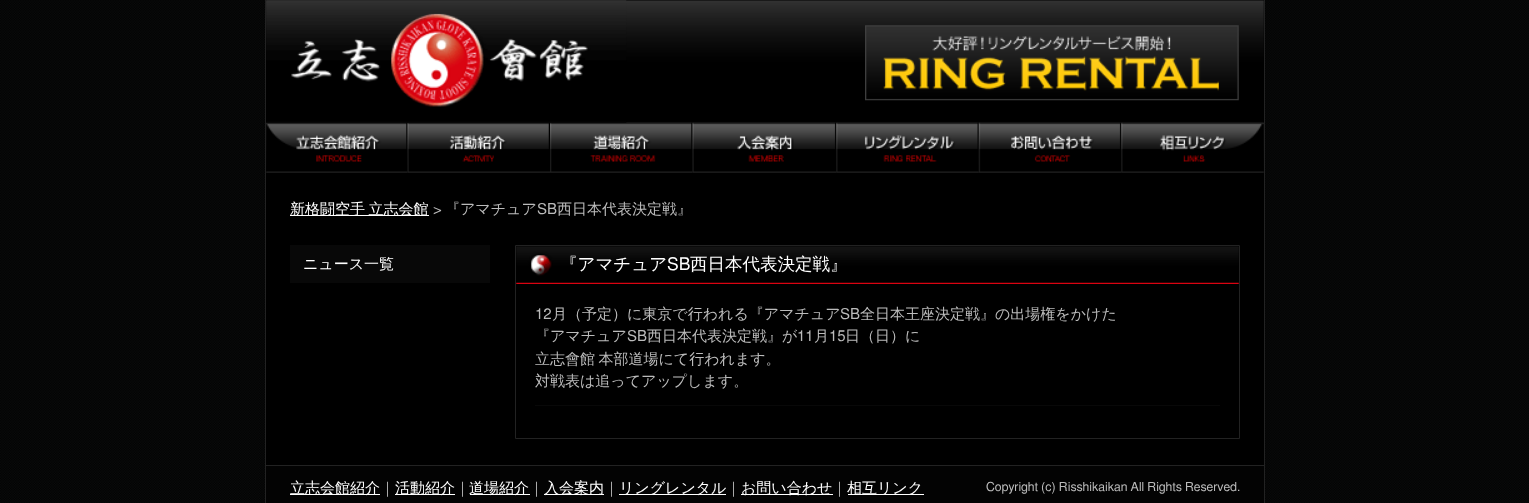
<svg xmlns="http://www.w3.org/2000/svg" width="1529" height="503" viewBox="0 0 1529 503">
  <rect width="100%" height="100%" fill="#fff"/>
  <image x="0" y="0" width="1529" height="503" href="img/1.png"/>
  <path d="M266 0h998v465H266z" fill="#000"/>
  <path d="M265.5 -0.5h999v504H265.5z" fill="none" stroke="#222"/>
  <image x="266" y="0" width="998" height="172" href="img/2.png"/>
  <image x="266" y="122" width="142" height="51" href="img/5.png"/>
  <image x="407" y="122" width="143" height="51" href="img/6.png"/>
  <image x="550" y="122" width="143" height="51" href="img/7.png"/>
  <image x="266" y="0" width="361" height="123" href="img/3.png"/>
  <image x="865" y="25" width="374" height="76" href="img/4.png"/>
  <image x="692" y="122" width="145" height="51" href="img/8.png"/>
  <image x="836" y="122" width="143" height="51" href="img/9.png"/>
  <image x="978" y="122" width="144" height="51" href="img/10.png"/>
  <image x="1121" y="122" width="143" height="51" href="img/11.png"/>
  <path d="M290 215h139v1H290z" fill="#fff"/>
  <path d="M290 245h200v38H290z" fill="#080808"/>
  <path d="M515.5 245.5h724v193H515.5z" fill="none" stroke="#222"/>
  <image x="516" y="246" width="723" height="38" href="img/12.png"/>
  <path d="M535 405h685v1H535z" fill="#080808"/>
  <path d="M266 466h998v37H266z" fill="#030303"/>
  <path d="M266 465h998v1H266z" fill="#222"/>
  <path d="M290 494h90v1H290z" fill="#fff"/>
  <path d="M395 494h60v1H395z" fill="#fff"/>
  <path d="M470 494h60v1H470z" fill="#fff"/>
  <path d="M544 494h60v1H544z" fill="#fff"/>
  <path d="M619 494h107v1H619z" fill="#fff"/>
  <path d="M741 494h92v1H741z" fill="#fff"/>
  <path d="M848 494h76v1H848z" fill="#fff"/>
  <text x="290" y="214" word-spacing="-1" font-family="WenQuanYi Zen Hei" font-size="15" font-weight="500" fill="#fff">新格闘空手 立志会館</text>
  <text x="433" y="214" font-family="FreeSans" font-size="15" fill="#bbb">&gt;</text>
  <text x="445" y="214" font-family="WenQuanYi Zen Hei" font-size="15" font-weight="500" fill="#bbb">『アマチュア</text>
  <text x="537" y="214" font-family="FreeSans" font-size="15" fill="#bbb">SB</text>
  <text x="557" y="214" font-family="WenQuanYi Zen Hei" font-size="15" font-weight="500" fill="#bbb">西日本代表決定戦』</text>
  <text x="303" y="269" font-family="WenQuanYi Zen Hei" font-size="15" font-weight="500" fill="#fff">ニュース一覧</text>
  <text x="560" y="270" font-family="WenQuanYi Zen Hei" font-size="17.5" font-weight="500" fill="#fff">『アマチュア</text>
  <text x="667" y="270" font-family="FreeSans" font-size="17.5" fill="#fff">SB</text>
  <text x="690" y="270" font-family="WenQuanYi Zen Hei" font-size="17.5" font-weight="500" fill="#fff">西日本代表決定戦』</text>
  <text x="535" y="319" font-family="FreeSans" font-size="15" fill="#bbb">12</text>
  <text x="552" y="319" font-family="WenQuanYi Zen Hei" font-size="15" font-weight="500" fill="#bbb">月（予定）に東京で行われる『アマチュア</text>
  <text x="840" y="319" font-family="FreeSans" font-size="15" fill="#bbb">SB</text>
  <g font-family="WenQuanYi Zen Hei" font-size="15" font-weight="500" fill="#bbb">
    <text x="860" y="319">全日本王座決定戦』の出場権をかけた</text>
    <text x="535" y="341">『アマチュア</text>
  </g>
  <text x="627" y="341" font-family="FreeSans" font-size="15" fill="#bbb">SB</text>
  <text x="647" y="341" font-family="WenQuanYi Zen Hei" font-size="15" font-weight="500" fill="#bbb">西日本代表決定戦』が</text>
  <text x="797" y="341" font-family="FreeSans" font-size="15" fill="#bbb">11</text>
  <text x="814" y="341" font-family="WenQuanYi Zen Hei" font-size="15" font-weight="500" fill="#bbb">月</text>
  <text x="829" y="341" font-family="FreeSans" font-size="15" fill="#bbb">15</text>
  <g font-family="WenQuanYi Zen Hei" font-size="15" font-weight="500" fill="#bbb">
    <text x="845" y="341">日（日）に</text>
    <text x="535" y="364" word-spacing="-1">立志會館 本部道場にて行われます。</text>
    <text x="535" y="386">対戦表は追ってアップします。</text>
  </g>
  <text x="290" y="493" font-family="WenQuanYi Zen Hei" font-size="15" font-weight="500" fill="#fff">立志会館紹介</text>
  <text x="380" y="493" font-family="WenQuanYi Zen Hei" font-size="15" font-weight="500" fill="#bbb">｜</text>
  <text x="395" y="493" font-family="WenQuanYi Zen Hei" font-size="15" font-weight="500" fill="#fff">活動紹介</text>
  <text x="455" y="493" font-family="WenQuanYi Zen Hei" font-size="15" font-weight="500" fill="#bbb">｜</text>
  <text x="469" y="493" font-family="WenQuanYi Zen Hei" font-size="15" font-weight="500" fill="#fff">道場紹介</text>
  <text x="529" y="493" font-family="WenQuanYi Zen Hei" font-size="15" font-weight="500" fill="#bbb">｜</text>
  <text x="544" y="493" font-family="WenQuanYi Zen Hei" font-size="15" font-weight="500" fill="#fff">入会案内</text>
  <text x="604" y="493" font-family="WenQuanYi Zen Hei" font-size="15" font-weight="500" fill="#bbb">｜</text>
  <text x="619" y="493" font-family="WenQuanYi Zen Hei" font-size="15" font-weight="500" fill="#fff">リングレンタル</text>
  <text x="726" y="493" font-family="WenQuanYi Zen Hei" font-size="15" font-weight="500" fill="#bbb">｜</text>
  <text x="741" y="493" font-family="WenQuanYi Zen Hei" font-size="15" font-weight="500" fill="#fff">お問い合わせ</text>
  <text x="832" y="493" font-family="WenQuanYi Zen Hei" font-size="15" font-weight="500" fill="#bbb">｜</text>
  <text x="847" y="493" font-family="WenQuanYi Zen Hei" font-size="15" font-weight="500" fill="#fff">相互リンク</text>
  <text x="986" y="491" font-family="FreeSans" font-size="12.5" fill="#bbb">Copyright (c) Risshikaikan All Rights Reserved.</text>
</svg>
